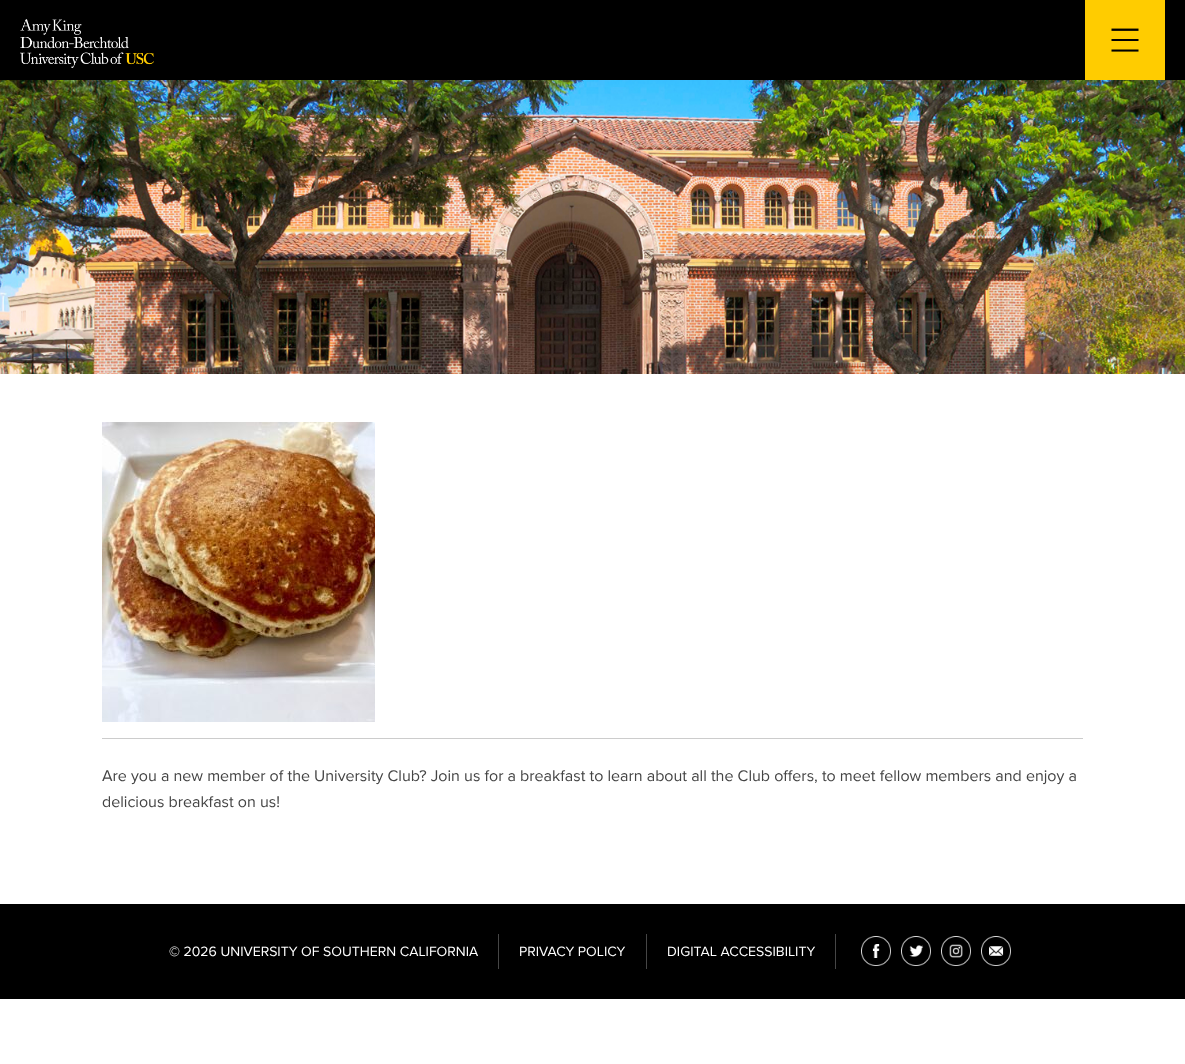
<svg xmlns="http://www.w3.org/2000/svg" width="1185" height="1064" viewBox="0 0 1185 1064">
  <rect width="100%" height="100%" fill="#fff"/>
  <path d="M0 0h1185v80H0z" fill="#000"/>
  <image x="20" y="19" width="134" height="49" href="img/1.png"/>
  <path d="M1085 0h80v80H1085z" fill="#fc0"/>
  <image x="1111" y="28" width="28" height="24" href="img/2.png"/>
  <image x="0" y="80" width="1185" height="294" href="img/3.png"/>
  <image x="102" y="422" width="273" height="300" href="img/4.png"/>
  <path d="M102 738h981v1H102z" fill="#ccc"/>
  <path d="M0 904h1185v95H0z" fill="#000"/>
  <path d="M498 934h1v35H498z" fill="#464646"/>
  <path d="M646 934h1v35H646z" fill="#464646"/>
  <path d="M835 934h1v35H835z" fill="#464646"/>
  <image x="861" y="936" width="30" height="30" href="img/5.png"/>
  <image x="901" y="936" width="30" height="30" href="img/6.png"/>
  <image x="941" y="936" width="30" height="30" href="img/7.png"/>
  <image x="981" y="936" width="30" height="30" href="img/8.png"/>
  <g font-family="Proxima Nova" font-size="16" fill="#444">
    <text x="102" y="781">Are you a new member of the University Club? Join us for a breakfast to learn about all the Club offers, to meet fellow members and enjoy a</text>
    <text x="102" y="807">delicious breakfast on us!</text>
  </g>
  <g font-family="Proxima Nova" font-size="14" fill="#fff">
    <text x="169" y="956">© 2026 UNIVERSITY OF SOUTHERN CALIFORNIA</text>
    <text x="519" y="956">PRIVACY POLICY</text>
    <text x="667" y="956">DIGITAL ACCESSIBILITY</text>
  </g>
</svg>
